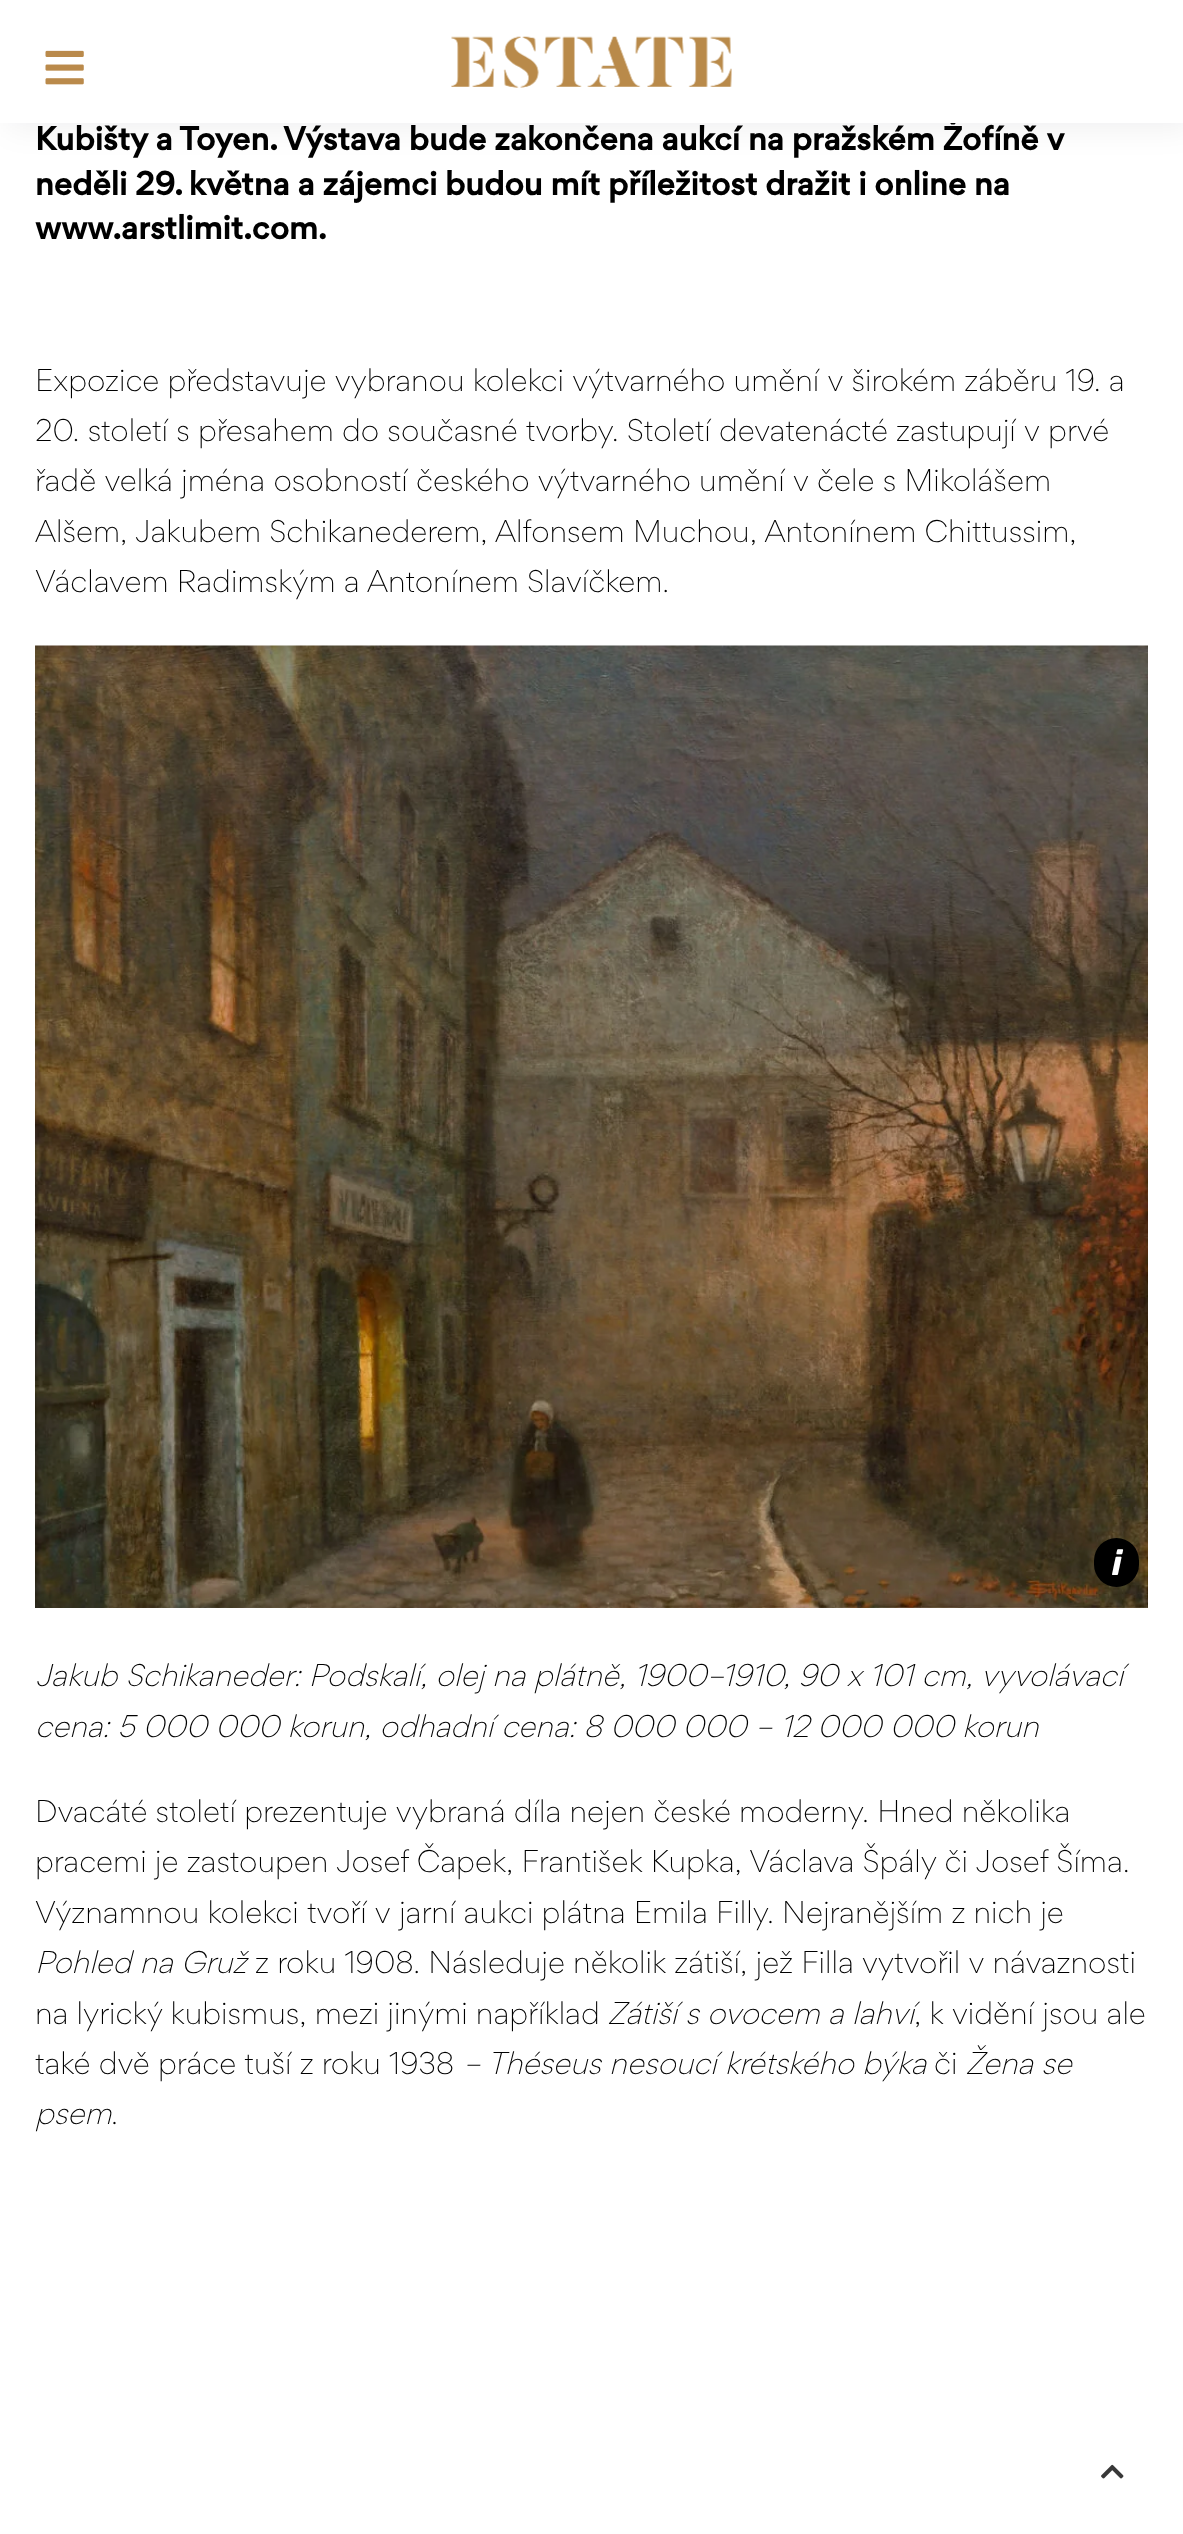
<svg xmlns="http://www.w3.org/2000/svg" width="1183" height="2534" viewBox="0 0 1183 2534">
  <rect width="100%" height="100%" fill="#fff"/>
  <path d="M9 4h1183v122H9z" fill="#01060d12" filter="blur(16px)"/>
  <image x="35" y="645" width="1113" height="963" href="img/3.png"/>
  <rect x="1094" y="1538" width="45" height="49" rx="22.5" fill="#000"/>
  <image x="1101" y="2464" width="23" height="15" href="img/4.png"/>
  <text x="35" y="150" font-family="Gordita" font-size="29.75" font-weight="bold" fill="#000">Kubišty a Toyen. Výstava bude zakončena aukcí na pražském Žofíně v</text>
  <path d="M0 0h1183v123H0z" fill="#fff"/>
  <image x="451" y="36" width="281" height="52" href="img/2.png"/>
  <image x="45" y="50" width="39" height="35" href="img/1.png"/>
  <g font-family="Gordita" font-size="29.75" font-weight="bold" fill="#000">
    <text x="35" y="195">neděli 29. května a zájemci budou mít příležitost dražit i online na</text>
    <text x="35" y="239">www.arstlimit.com.</text>
  </g>
  <g font-family="Gordita" font-size="28" font-weight="300" fill="#000">
    <text x="35" y="391">Expozice představuje vybranou kolekci výtvarného umění v širokém záběru 19. a</text>
    <text x="35" y="441">20. století s přesahem do současné tvorby. Století devatenácté zastupují v prvé</text>
    <text x="35" y="491">řadě velká jména osobností českého výtvarného umění v čele s Mikolášem</text>
    <text x="35" y="542">Alšem, Jakubem Schikanederem, Alfonsem Muchou, Antonínem Chittussim,</text>
    <text x="35" y="592">Václavem Radimským a Antonínem Slavíčkem.</text>
  </g>
  <text x="1112" y="1575" font-family="Rubik" font-size="35" font-weight="bold" font-style="italic" fill="#fff">i</text>
  <g font-family="Gordita" font-size="28" font-weight="300" font-style="italic" fill="#000">
    <text x="35" y="1686">Jakub Schikaneder: Podskalí, olej na plátně, 1900–</text>
    <text x="722" y="1686">1910, 90 x 101 cm, vyvolávací</text>
    <text x="35" y="1737">cena: 5 000 000 korun, odhadní cena: 8 000 000 – 12 000 000 korun</text>
  </g>
  <g font-family="Gordita" font-size="28" font-weight="300" fill="#000">
    <text x="35" y="1822">Dvacáté století prezentuje vybraná díla nejen české moderny. Hned několika</text>
    <text x="35" y="1872">pracemi je zastoupen Josef Čapek, František Kupka, Václava Špály či Josef Šíma.</text>
    <text x="35" y="1923">Významnou kolekci tvoří v jarní aukci plátna Emila Filly. Nejranějším z nich je</text>
  </g>
  <text x="35" y="1973" font-family="Gordita" font-size="28" font-weight="300" font-style="italic" fill="#000">Pohled na Gruž</text>
  <g font-family="Gordita" font-size="28" font-weight="300" fill="#000">
    <text x="255" y="1973">z roku 1908. Následuje několik zátiší, jež Filla vytvořil v návaznosti</text>
    <text x="35" y="2024">na lyrický kubismus, mezi jinými například</text>
  </g>
  <text x="608" y="2024" font-family="Gordita" font-size="28" font-weight="300" font-style="italic" fill="#000">Zátiší s ovocem a lahví</text>
  <g font-family="Gordita" font-size="28" font-weight="300" fill="#000">
    <text x="914" y="2024">, k vidění jsou ale</text>
    <text x="35" y="2074">také dvě práce tuší z roku 1938</text>
  </g>
  <text x="463" y="2074" font-family="Gordita" font-size="28" font-weight="300" font-style="italic" fill="#000">– Théseus nesoucí krétského býka</text>
  <text x="934" y="2074" font-family="Gordita" font-size="28" font-weight="300" fill="#000">či</text>
  <g font-family="Gordita" font-size="28" font-weight="300" font-style="italic" fill="#000">
    <text x="966" y="2074">Žena se</text>
    <text x="35" y="2124">psem</text>
  </g>
  <text x="111" y="2124" font-family="Gordita" font-size="28" font-weight="300" fill="#000">.</text>
</svg>
